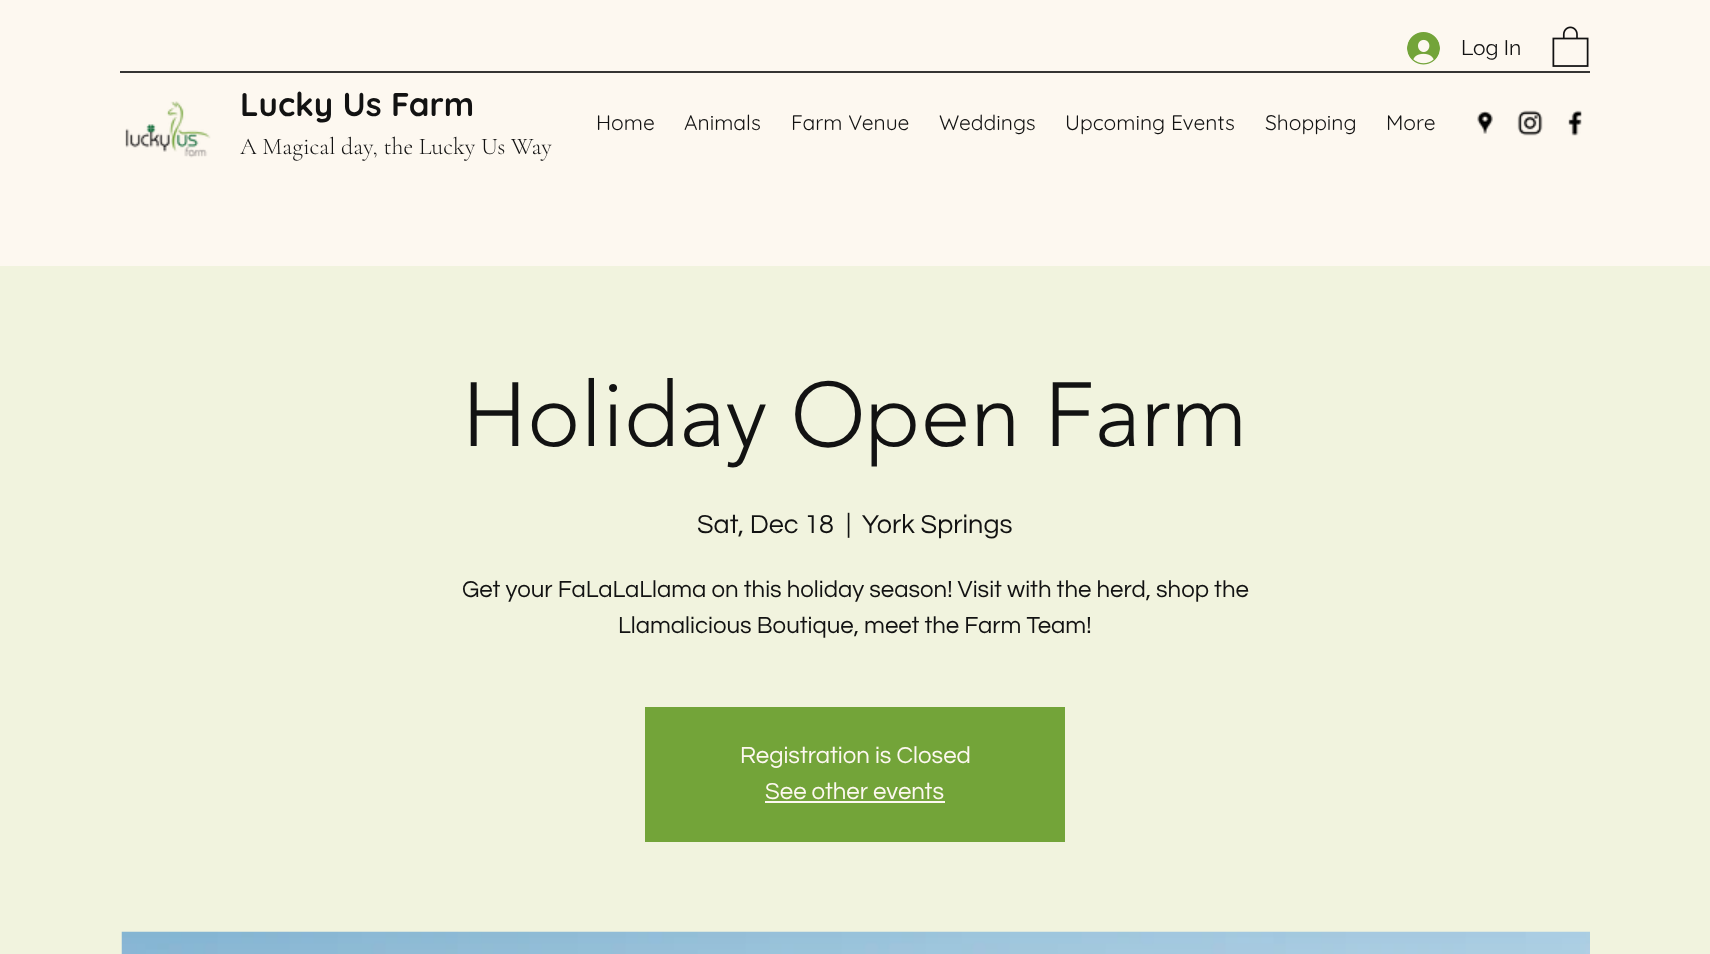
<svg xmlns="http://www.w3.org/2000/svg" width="1710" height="954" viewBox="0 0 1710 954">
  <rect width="100%" height="100%" fill="#fdf8f0"/>
  <image x="1407" y="32" width="33" height="33" href="img/1.png"/>
  <image x="1552" y="26" width="37" height="41" href="img/2.png"/>
  <path d="M120 71h1470v2H120z" fill="#353533"/>
  <image x="125" y="101" width="86" height="57" href="img/3.png"/>
  <image x="1477" y="111" width="16" height="23" href="img/4.png"/>
  <image x="1517" y="110" width="26" height="26" href="img/5.png"/>
  <image x="1568" y="110" width="14" height="26" href="img/6.png"/>
  <path d="M0 266h1710v688H0z" fill="#f1f3de"/>
  <path d="M645 707h420v135H645z" fill="#73a439"/>
  <path d="M765 801h180v2H765z" fill="#fdf8f0"/>
  <image x="121" y="931" width="1469" height="23" href="img/7.png"/>
  <text x="1461" y="55" font-family="Raleway" font-size="21" fill="#121212">Log In</text>
  <text x="240" y="116" font-family="Quicksand" font-size="33" font-weight="bold" fill="#121212">Lucky Us Farm</text>
  <text x="240" y="154" font-family="Cormorant Garamond" font-size="24" font-weight="300" fill="#121212">A Magical day, the Lucky Us Way</text>
  <g font-family="Quicksand" font-size="21" fill="#121212">
    <text x="596" y="130">Home</text>
    <text x="684" y="130">Animals</text>
    <text x="791" y="130">Farm Venue</text>
    <text x="939" y="130">Weddings</text>
    <text x="1065" y="130">Upcoming Events</text>
    <text x="1265" y="130">Shopping</text>
    <text x="1386" y="130">More</text>
  </g>
  <text x="462" y="446" font-family="'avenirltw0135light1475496'" font-size="90" font-weight="300" fill="#121212">Holiday Open Farm</text>
  <g font-family="Questrial" font-size="27" fill="#121212">
    <text x="697" y="533">Sat, Dec 18</text>
    <text x="846" y="533">|</text>
    <text x="862" y="533">York Springs</text>
  </g>
  <g font-family="Questrial" font-size="24" fill="#121212">
    <text x="462" y="597">Get your FaLaLaLlama on this holiday season! Visit with the herd, shop the</text>
    <text x="618" y="633">Llamalicious Boutique, meet the Farm Team!</text>
  </g>
  <g font-family="Questrial" font-size="24" fill="#fdf8f0">
    <text x="740" y="763">Registration is Closed</text>
    <text x="765" y="799">See other events</text>
  </g>
</svg>
